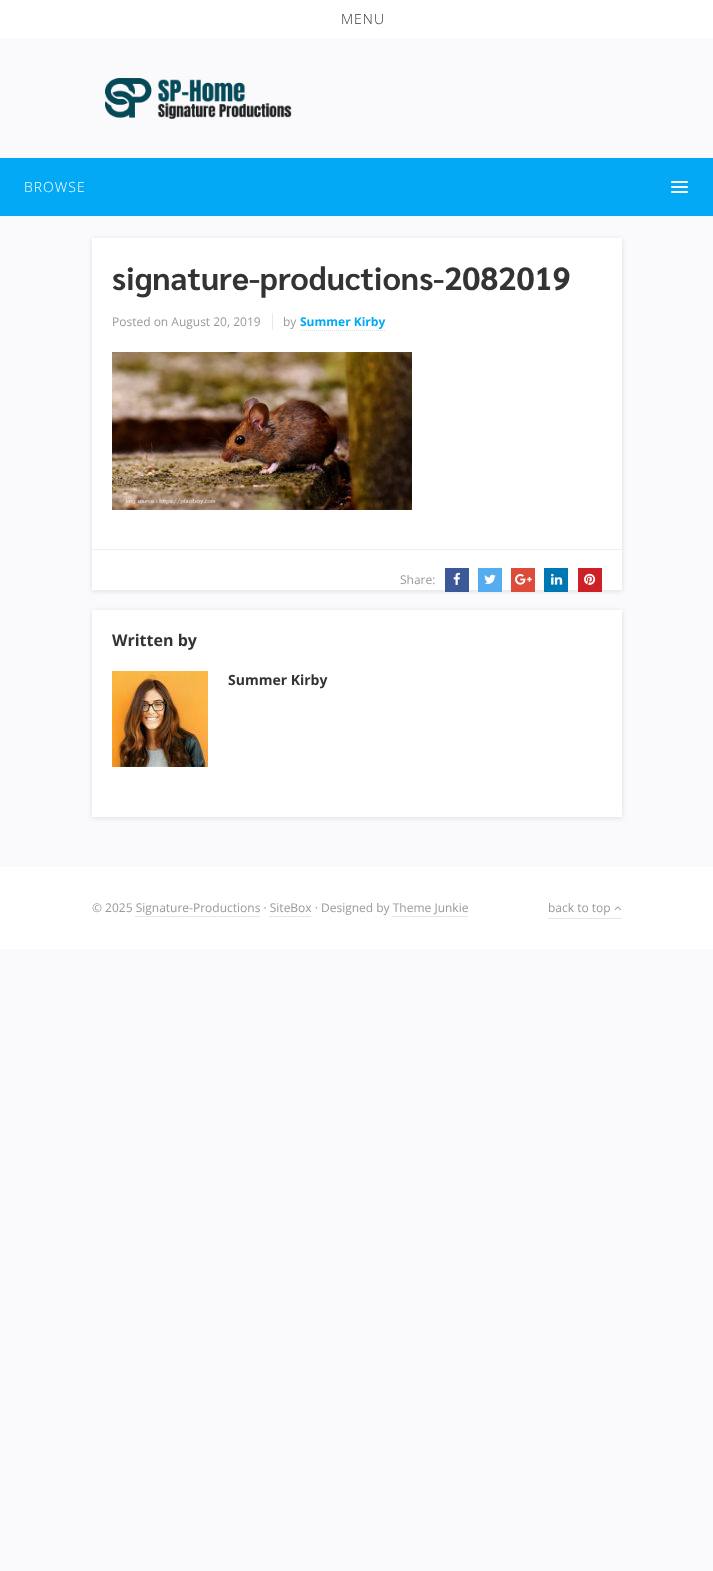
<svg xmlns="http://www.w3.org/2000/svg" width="713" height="1571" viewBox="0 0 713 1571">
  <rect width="100%" height="100%" fill="#fafafc"/>
  <path d="M0 0h713v38H0z" fill="#fff"/>
  <image x="105" y="78" width="187" height="41" href="img/1.png"/>
  <path d="M0 158h713v58H0z" fill="#03a9f4"/>
  <rect x="671" y="181" width="17" height="2" rx="1" fill="#fff"/>
  <rect x="671" y="186" width="17" height="2" rx="1" fill="#fff"/>
  <rect x="671" y="191" width="17" height="2" rx="1" fill="#fff"/>
  <path d="M92 239h530v352H92z" fill="#bebebe75" filter="blur(2.5px)"/>
  <path d="M92 238h530v352H92z" fill="#fff"/>
  <path d="M272 313h1v17H272z" fill="#e9e9e9"/>
  <path d="M300 330.5H385" fill="none" stroke="#ddd" stroke-dasharray="1 1"/>
  <image x="112" y="352" width="300" height="158" href="img/2.png"/>
  <path d="M92 549h530v1H92z" fill="#f0f0f0"/>
  <path d="M445 568h24v24H445z" fill="#3b5998"/>
  <image x="453" y="572" width="7" height="13" href="img/3.png"/>
  <path d="M478 568h24v24H478z" fill="#55acee"/>
  <image x="484" y="574" width="12" height="10" href="img/4.png"/>
  <path d="M511 568h24v24H511z" fill="#dd4b39"/>
  <image x="515" y="574" width="17" height="11" href="img/5.png"/>
  <path d="M544 568h24v24H544z" fill="#0077b5"/>
  <image x="551" y="573" width="12" height="12" href="img/6.png"/>
  <path d="M578 568h24v24H578z" fill="#cc2127"/>
  <image x="584" y="573" width="12" height="12" href="img/7.png"/>
  <path d="M92 611h530v207H92z" fill="#bebebe75" filter="blur(2.5px)"/>
  <path d="M92 610h530v207H92z" fill="#fff"/>
  <image x="112" y="671" width="96" height="96" href="img/8.png"/>
  <path d="M0 867h713v82H0z" fill="#fff"/>
  <path d="M548 918h74v1H548z" fill="#e6e6e6"/>
  <image x="614" y="906" width="8" height="5" href="img/9.png"/>
  <path d="M135 916h125v1H135z" fill="#e6e6e6"/>
  <path d="M269 916h42v1H269z" fill="#e6e6e6"/>
  <path d="M392 916h76v1H392z" fill="#e6e6e6"/>
  <text x="341" y="24" font-family="Open Sans" font-size="14" font-weight="300" letter-spacing="1" fill="#333">MENU</text>
  <text x="24" y="192" font-family="Open Sans" font-size="14" font-weight="300" letter-spacing="1" fill="#fff">BROWSE</text>
  <text x="112" y="290" font-family="Sarabun" font-size="32" font-weight="bold" fill="#333">signature-productions-2082019</text>
  <g font-family="Open Sans" font-size="12" fill="#999">
    <text x="112" y="326">Posted on August 20, 2019</text>
    <text x="283" y="326">by</text>
  </g>
  <text x="300" y="326" font-family="Open Sans" font-size="12" font-weight="bold" fill="#03a9f4">Summer Kirby</text>
  <text x="400" y="584" font-family="Open Sans" font-size="12" fill="#999">Share:</text>
  <text x="112" y="646" font-family="Open Sans" font-size="16" font-weight="bold" fill="#333">Written by</text>
  <text x="228" y="685" font-family="Open Sans" font-size="14" font-weight="bold" fill="#333">Summer Kirby</text>
  <g font-family="Open Sans" font-size="12" fill="#999">
    <text x="92" y="912">© 2025 Signature-Productions · SiteBox · Designed by Theme Junkie</text>
    <text x="548" y="912">back to top</text>
  </g>
</svg>
